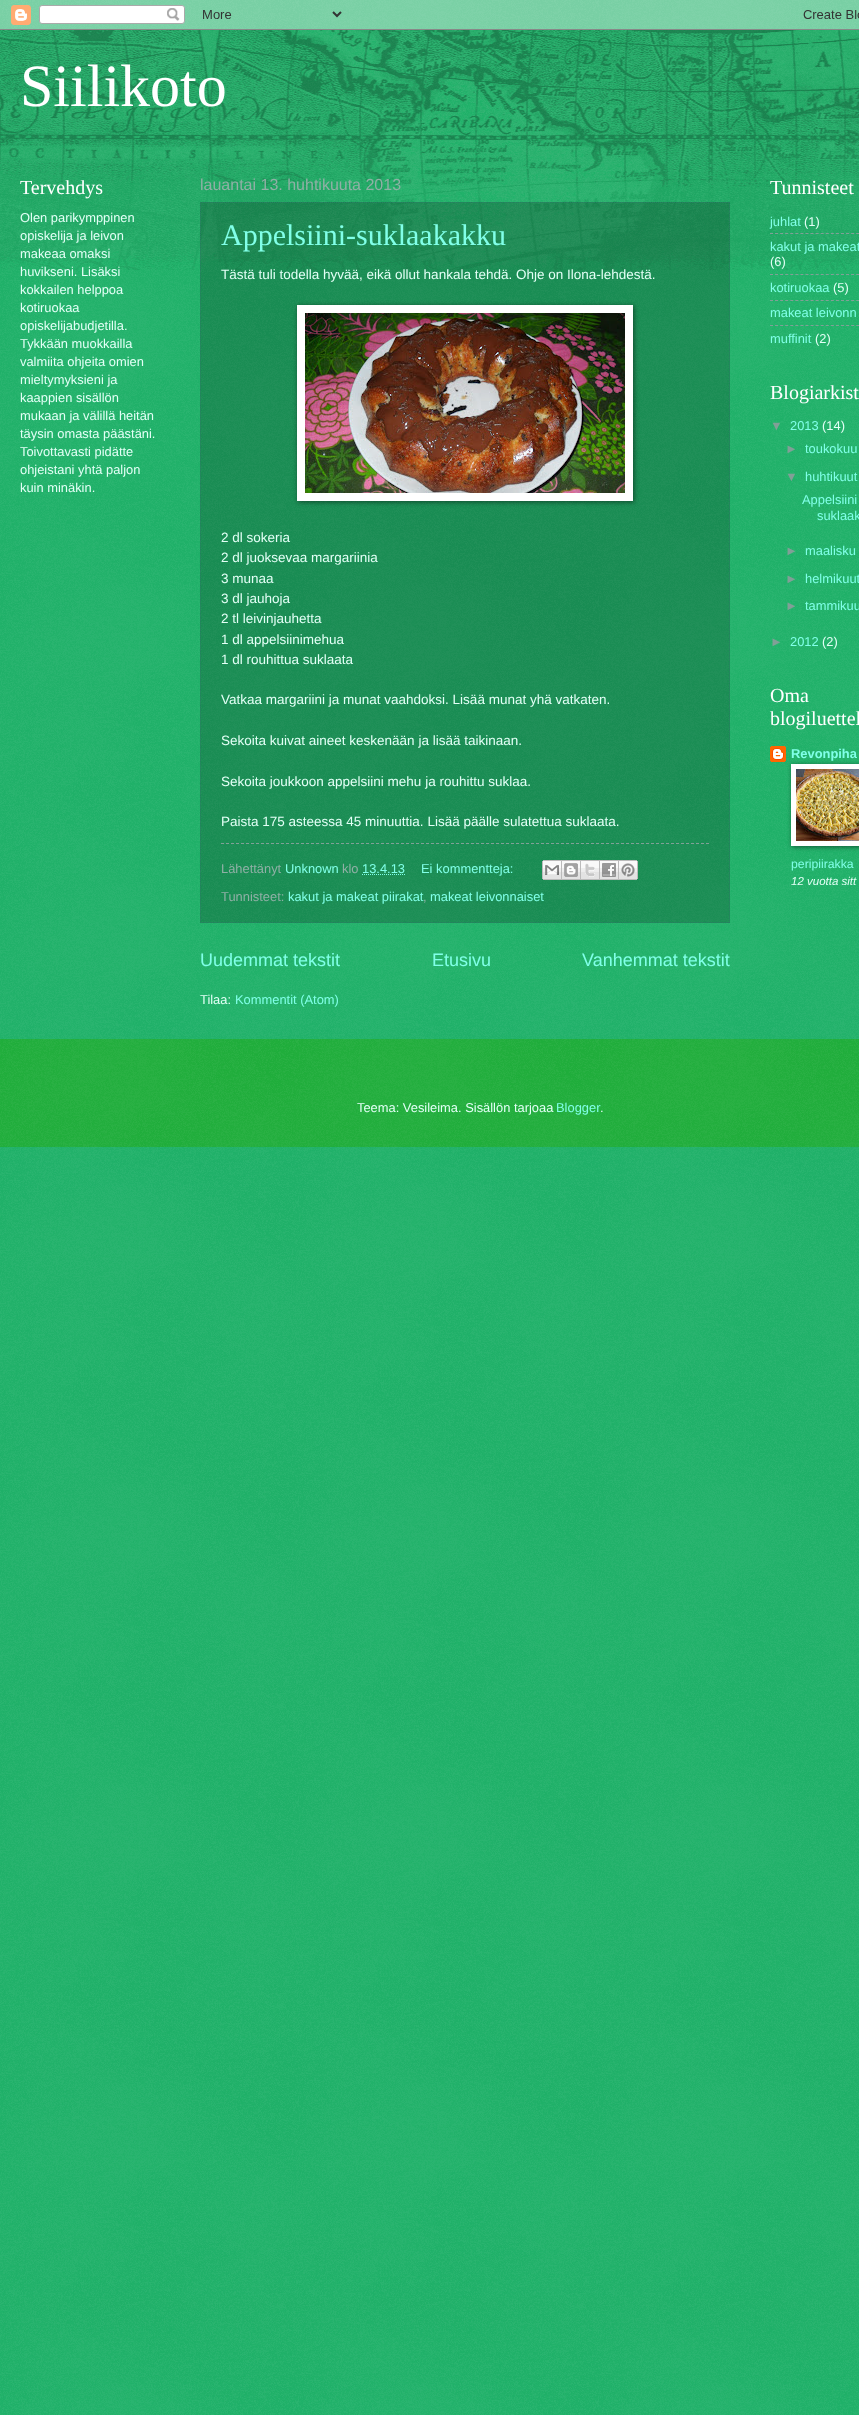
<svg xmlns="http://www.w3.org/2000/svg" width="859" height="2415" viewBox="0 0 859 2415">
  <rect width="100%" height="100%" fill="#00a654"/>
  <image x="0" y="0" width="859" height="2415" href="img/1.png"/>
  <image x="0" y="0" width="859" height="30" href="img/2.png"/>
  <image x="0" y="30" width="859" height="240" href="img/3.png"/>
  <path d="M200 202h530v721H200z" fill="#00000033"/>
  <path d="M200 202.5H730" fill="none" stroke="#297d63" stroke-dasharray="1 1"/>
  <path d="M729.5 202V923" fill="none" stroke="#297d63" stroke-dasharray="1 1"/>
  <path d="M200 922.5H730" fill="none" stroke="#297d63" stroke-dasharray="1 1"/>
  <path d="M200.5 202V923" fill="none" stroke="#297d63" stroke-dasharray="1 1"/>
  <path d="M298 306h336v196H298z" fill="#00000080" filter="blur(2.5px)"/>
  <path d="M297 305h336v196H297z" fill="#fff"/>
  <image x="305" y="313" width="320" height="180" href="img/4.png"/>
  <path d="M221 843.5H709" fill="none" stroke="#81a097" stroke-dasharray="3 2"/>
  <path d="M362 874.5H405" fill="none" stroke="#81ffe8" stroke-dasharray="1 1"/>
  <image x="542" y="860" width="20" height="20" href="img/5.png"/>
  <image x="562" y="860" width="19" height="20" href="img/6.png"/>
  <image x="581" y="860" width="19" height="20" href="img/7.png"/>
  <image x="600" y="860" width="19" height="20" href="img/8.png"/>
  <image x="619" y="860" width="19" height="20" href="img/9.png"/>
  <path d="M770 233.5H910" fill="none" stroke="#81a097" stroke-dasharray="3 2.07"/>
  <path d="M770 274.5H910" fill="none" stroke="#81a097" stroke-dasharray="3 2.07"/>
  <path d="M770 300.5H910" fill="none" stroke="#81a097" stroke-dasharray="3 2.07"/>
  <path d="M770 325.5H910" fill="none" stroke="#81a097" stroke-dasharray="3 2.07"/>
  <image x="770" y="746" width="16" height="16" href="img/10.png"/>
  <path d="M792 765h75v82H792z" fill="#00000080" filter="blur(2.5px)"/>
  <path d="M791 764h68v82H791z" fill="#fff"/>
  <image x="796" y="769" width="63" height="72" href="img/11.png"/>
  <path d="M0 1039h859v108H0z" fill="#00a220"/>
  <image x="0" y="1039" width="859" height="108" href="img/12.png"/>
  <text x="20" y="106" font-family="Liberation Serif" font-size="60" fill="#fff">Siilikoto</text>
  <text x="20" y="194" font-family="Liberation Serif" font-size="20" fill="#fff">Tervehdys</text>
  <g font-family="Liberation Sans" font-size="12.9" fill="#e3fff6">
    <text x="20" y="222">Olen parikymppinen</text>
    <text x="20" y="240">opiskelija ja leivon</text>
    <text x="20" y="258">makeaa omaksi</text>
    <text x="20" y="276">huvikseni. Lisäksi</text>
    <text x="20" y="294">kokkailen helppoa</text>
    <text x="20" y="312">kotiruokaa</text>
    <text x="20" y="330">opiskelijabudjetilla.</text>
    <text x="20" y="348">Tykkään muokkailla</text>
    <text x="20" y="366">valmiita ohjeita omien</text>
    <text x="20" y="384">mieltymyksieni ja</text>
    <text x="20" y="402">kaappien sisällön</text>
    <text x="20" y="420">mukaan ja välillä heitän</text>
    <text x="20" y="438">täysin omasta päästäni.</text>
    <text x="20" y="456">Toivottavasti pidätte</text>
    <text x="20" y="474">ohjeistani yhtä paljon</text>
    <text x="20" y="492">kuin minäkin.</text>
  </g>
  <text x="200" y="190" font-family="Liberation Sans" font-size="16" fill="#90b0a6">lauantai 13. huhtikuuta 2013</text>
  <text x="221" y="245" font-family="Liberation Serif" font-size="30" fill="#81ffe8">Appelsiini-suklaakakku</text>
  <g font-family="Liberation Sans" font-size="13.5" fill="#e3fff6">
    <text x="221" y="279">Tästä tuli todella hyvää, eikä ollut hankala tehdä. Ohje on Ilona-lehdestä.</text>
    <text x="221" y="542">2 dl sokeria</text>
    <text x="221" y="562">2 dl juoksevaa margariinia</text>
    <text x="221" y="583">3 munaa</text>
    <text x="221" y="603">3 dl jauhoja</text>
    <text x="221" y="623">2 tl leivinjauhetta</text>
    <text x="221" y="644">1 dl appelsiinimehua</text>
    <text x="221" y="664">1 dl rouhittua suklaata</text>
    <text x="221" y="704">Vatkaa margariini ja munat vaahdoksi. Lisää munat yhä vatkaten.</text>
    <text x="221" y="745">Sekoita kuivat aineet keskenään ja lisää taikinaan.</text>
    <text x="221" y="786">Sekoita joukkoon appelsiini mehu ja rouhittu suklaa.</text>
    <text x="221" y="826">Paista 175 asteessa 45 minuuttia. Lisää päälle sulatettua suklaata.</text>
  </g>
  <text x="221" y="873" font-family="Liberation Sans" font-size="12.9" fill="#90b0a6">Lähettänyt</text>
  <text x="285" y="873" font-family="Liberation Sans" font-size="12.9" fill="#81ffe8">Unknown</text>
  <text x="342" y="873" font-family="Liberation Sans" font-size="12.9" fill="#90b0a6">klo</text>
  <g font-family="Liberation Sans" font-size="12.9" fill="#81ffe8">
    <text x="362" y="873">13.4.13</text>
    <text x="421" y="873">Ei kommentteja:</text>
  </g>
  <text x="221" y="901" font-family="Liberation Sans" font-size="12.9" fill="#90b0a6">Tunnisteet:</text>
  <text x="288" y="901" font-family="Liberation Sans" font-size="12.9" fill="#81ffe8">kakut ja makeat piirakat</text>
  <text x="423" y="901" font-family="Liberation Sans" font-size="12.9" fill="#90b0a6">,</text>
  <text x="430" y="901" font-family="Liberation Sans" font-size="12.9" fill="#81ffe8">makeat leivonnaiset</text>
  <g font-family="Liberation Sans" font-size="18" fill="#81ffe8">
    <text x="200" y="966">Uudemmat tekstit</text>
    <text x="432" y="966">Etusivu</text>
    <text x="582" y="966">Vanhemmat tekstit</text>
  </g>
  <text x="200" y="1004" font-family="Liberation Sans" font-size="12.9" fill="#e3fff6">Tilaa:</text>
  <text x="235" y="1004" font-family="Liberation Sans" font-size="12.9" fill="#81ffe8">Kommentit (Atom)</text>
  <text x="770" y="194" font-family="Liberation Serif" font-size="20" fill="#fff">Tunnisteet</text>
  <text x="770" y="226" font-family="Liberation Sans" font-size="12.9" fill="#81ffe8">juhlat</text>
  <text x="804" y="226" font-family="Liberation Sans" font-size="12.9" fill="#e3fff6">(1)</text>
  <text x="770" y="251" font-family="Liberation Sans" font-size="12.9" fill="#81ffe8">kakut ja makeat</text>
  <text x="770" y="266" font-family="Liberation Sans" font-size="12.9" fill="#e3fff6">(6)</text>
  <text x="770" y="292" font-family="Liberation Sans" font-size="12.9" fill="#81ffe8">kotiruokaa</text>
  <text x="833" y="292" font-family="Liberation Sans" font-size="12.9" fill="#e3fff6">(5)</text>
  <g font-family="Liberation Sans" font-size="12.9" fill="#81ffe8">
    <text x="770" y="317">makeat leivonn</text>
    <text x="770" y="343">muffinit</text>
  </g>
  <text x="815" y="343" font-family="Liberation Sans" font-size="12.9" fill="#e3fff6">(2)</text>
  <text x="770" y="399" font-family="Liberation Serif" font-size="20" fill="#fff">Blogiarkist</text>
  <text x="770" y="430" font-family="Liberation Sans" font-size="12.9" fill="#81a097">▼</text>
  <text x="790" y="430" font-family="Liberation Sans" font-size="12.9" fill="#81ffe8">2013</text>
  <text x="822" y="430" font-family="Liberation Sans" font-size="12.9" fill="#e3fff6">(14)</text>
  <text x="785" y="453" font-family="Liberation Sans" font-size="12.9" fill="#81a097">►</text>
  <text x="805" y="453" font-family="Liberation Sans" font-size="12.9" fill="#81ffe8">toukokuu</text>
  <text x="785" y="481" font-family="Liberation Sans" font-size="12.9" fill="#81a097">▼</text>
  <g font-family="Liberation Sans" font-size="12.9" fill="#81ffe8">
    <text x="805" y="481">huhtikuut</text>
    <text x="802" y="504">Appelsiini</text>
    <text x="817" y="520">suklaak</text>
  </g>
  <text x="785" y="555" font-family="Liberation Sans" font-size="12.9" fill="#81a097">►</text>
  <text x="805" y="555" font-family="Liberation Sans" font-size="12.9" fill="#81ffe8">maalisku</text>
  <text x="785" y="583" font-family="Liberation Sans" font-size="12.9" fill="#81a097">►</text>
  <text x="805" y="583" font-family="Liberation Sans" font-size="12.9" fill="#81ffe8">helmikuut</text>
  <text x="785" y="610" font-family="Liberation Sans" font-size="12.9" fill="#81a097">►</text>
  <text x="805" y="610" font-family="Liberation Sans" font-size="12.9" fill="#81ffe8">tammikuu</text>
  <text x="770" y="646" font-family="Liberation Sans" font-size="12.9" fill="#81a097">►</text>
  <text x="790" y="646" font-family="Liberation Sans" font-size="12.9" fill="#81ffe8">2012</text>
  <text x="822" y="646" font-family="Liberation Sans" font-size="12.9" fill="#e3fff6">(2)</text>
  <g font-family="Liberation Serif" font-size="20" fill="#fff">
    <text x="770" y="702">Oma</text>
    <text x="770" y="725">blogiluettel</text>
  </g>
  <text x="791" y="758" font-family="Liberation Sans" font-size="12.9" font-weight="bold" fill="#81ffe8">Revonpiha</text>
  <text x="791" y="868" font-family="Liberation Sans" font-size="12.25" fill="#81ffe8">peripiirakka</text>
  <text x="791" y="885" font-family="Liberation Sans" font-size="11.5" font-style="italic" fill="#e3fff6">12 vuotta sitt</text>
  <text x="357" y="1112" font-family="Liberation Sans" font-size="12.9" fill="#e3fff6">Teema: Vesileima. Sisällön tarjoaa</text>
  <text x="556" y="1112" font-family="Liberation Sans" font-size="12.9" fill="#81ffe8">Blogger</text>
  <text x="600" y="1112" font-family="Liberation Sans" font-size="12.9" fill="#e3fff6">.</text>
</svg>
